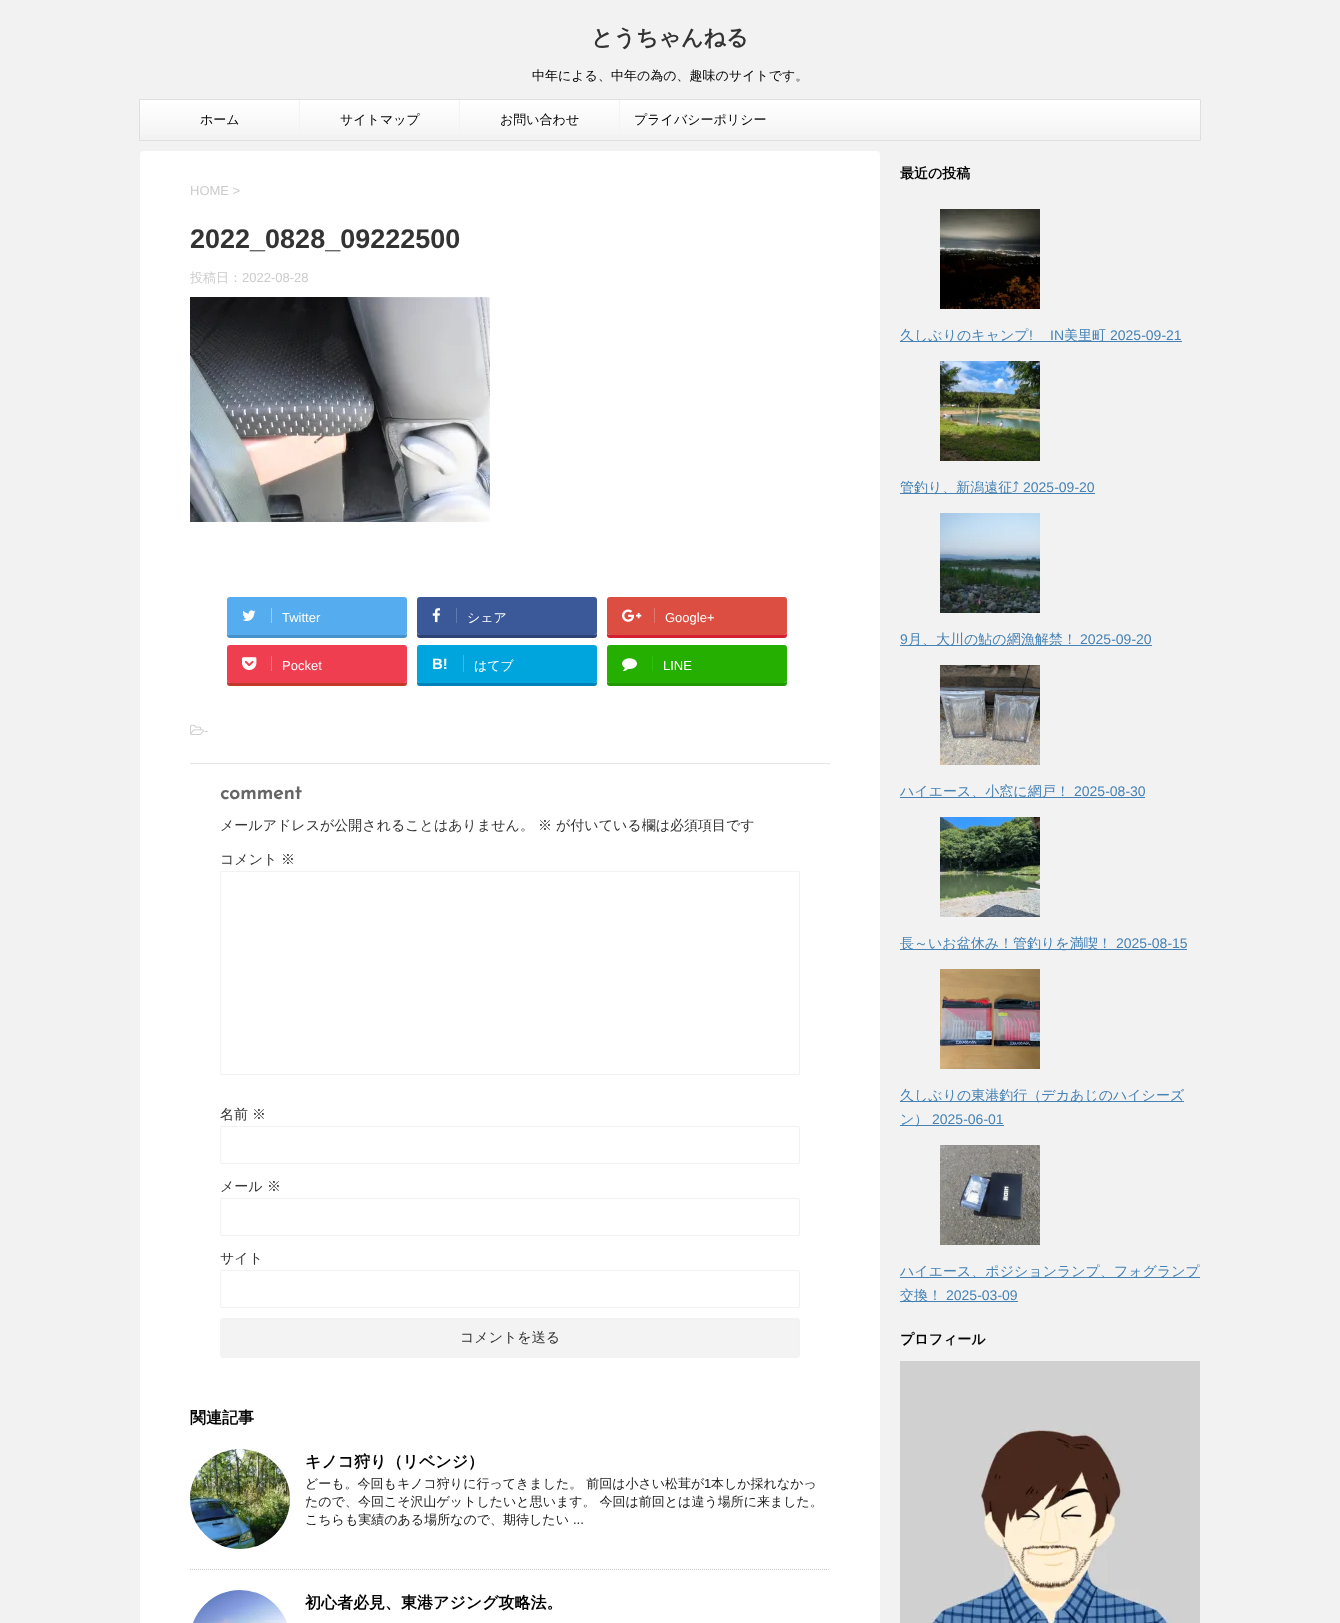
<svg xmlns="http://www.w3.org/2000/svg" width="1340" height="1623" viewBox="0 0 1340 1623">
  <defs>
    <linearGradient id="g1" gradientUnits="userSpaceOnUse" x1="670" y1="100" x2="670" y2="140"><stop offset="0" stop-color="#fff"/><stop offset="1" stop-color="#f3f3f3"/></linearGradient>
  </defs>
  <rect width="100%" height="100%" fill="#f2f2f2"/>
  <path d="M140 100h1060v35H140z" fill="url(#g1)"/>
  <rect x="139.5" y="99.5" width="1061" height="41" rx="0.5" fill="none" stroke="#e0dede"/>
  <path d="M299 100h1v40H299z" fill="#f3f3f3"/>
  <path d="M459 100h1v40H459z" fill="#f3f3f3"/>
  <path d="M619 100h1v40H619z" fill="#f3f3f3"/>
  <rect x="140" y="151" width="740" height="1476" rx="4" fill="#fff"/>
  <image x="190" y="297" width="300" height="225" href="img/1.png"/>
  <path d="M227 632V635C227 637 228 638 230 638H404C406 638 407 637 407 635V632C407 634 406 635 404 635H230C228 635 227 634 227 632Z" fill="#4892cb"/>
  <rect x="227" y="597" width="180" height="38" rx="3" fill="#55acee"/>
  <path d="M271 608h1v15H271z" fill="#9acff4"/>
  <image x="242" y="610" width="14" height="11" href="img/2.png"/>
  <path d="M417 632V635C417 637 418 638 420 638H594C596 638 597 637 597 635V632C597 634 596 635 594 635H420C418 635 417 634 417 632Z" fill="#2c4373"/>
  <rect x="417" y="597" width="180" height="38" rx="3" fill="#3b5998"/>
  <path d="M456 608h1v15H456z" fill="#607bb2"/>
  <image x="432" y="608" width="9" height="15" href="img/3.png"/>
  <path d="M607 632V635C607 637 608 638 610 638H784C786 638 787 637 787 635V632C787 634 786 635 784 635H610C608 635 607 634 607 632Z" fill="#d51e31"/>
  <rect x="607" y="597" width="180" height="38" rx="3" fill="#dc4e41"/>
  <path d="M654 608h1v15H654z" fill="#e0776d"/>
  <image x="622" y="609" width="20" height="13" href="img/4.png"/>
  <path d="M227 680V683C227 685 228 686 230 686H404C406 686 407 685 407 683V680C407 682 406 683 404 683H230C228 683 227 682 227 680Z" fill="#c0392b"/>
  <rect x="227" y="645" width="180" height="38" rx="3" fill="#f03e51"/>
  <path d="M271 656h1v15H271z" fill="#f27985"/>
  <image x="242" y="657" width="15" height="14" href="img/5.png"/>
  <path d="M417 680V683C417 685 418 686 420 686H594C596 686 597 685 597 683V680C597 682 596 683 594 683H420C418 683 417 682 417 680Z" fill="#0081b8"/>
  <rect x="417" y="645" width="180" height="38" rx="3" fill="#00a5de"/>
  <path d="M463 655h1v17H463z" fill="#48b6db"/>
  <path d="M607 680V683C607 685 608 686 610 686H784C786 686 787 685 787 683V680C787 682 786 683 784 683H610C608 683 607 682 607 680Z" fill="#219900"/>
  <rect x="607" y="645" width="180" height="38" rx="3" fill="#25af00"/>
  <path d="M652 656h1v15H652z" fill="#29c200"/>
  <image x="622" y="658" width="15" height="14" href="img/6.png"/>
  <image x="190" y="724" width="14" height="11" href="img/7.png"/>
  <path d="M190 763h640v1H190z" fill="#e6e6e6"/>
  <path d="M220.5 871.5h579v203H220.5z" fill="none" stroke="#f2f2f2"/>
  <rect x="220.5" y="1126.5" width="579" height="37" rx="1.5" fill="none" stroke="#f2f2f2"/>
  <rect x="220.5" y="1198.5" width="579" height="37" rx="1.5" fill="none" stroke="#f2f2f2"/>
  <rect x="220.5" y="1270.5" width="579" height="37" rx="1.5" fill="none" stroke="#f2f2f2"/>
  <rect x="220.5" y="1318.5" width="579" height="39" rx="2.5" fill="#f3f3f3" stroke="#f2f2f2"/>
  <path d="M190 1569.5H830" fill="none" stroke="#ccc" stroke-dasharray="1 1"/>
  <image x="190" y="1449" width="100" height="100" href="img/8.png"/>
  <image x="193" y="1590" width="94" height="33" href="img/9.png"/>
  <image x="940" y="209" width="100" height="100" href="img/10.png"/>
  <path d="M900 341h282v1H900z" fill="#4682b4"/>
  <image x="940" y="361" width="100" height="100" href="img/11.png"/>
  <path d="M900 493h195v1H900z" fill="#4682b4"/>
  <image x="940" y="513" width="100" height="100" href="img/12.png"/>
  <path d="M900 645h252v1H900z" fill="#4682b4"/>
  <image x="940" y="665" width="100" height="100" href="img/13.png"/>
  <path d="M900 797h245v1H900z" fill="#4682b4"/>
  <image x="940" y="817" width="100" height="100" href="img/14.png"/>
  <path d="M900 949h287v1H900z" fill="#4682b4"/>
  <image x="940" y="969" width="100" height="100" href="img/15.png"/>
  <path d="M900 1101h284v1H900z" fill="#4682b4"/>
  <path d="M900 1125h104v1H900z" fill="#4682b4"/>
  <image x="940" y="1145" width="100" height="100" href="img/16.png"/>
  <path d="M900 1277h300v1H900z" fill="#4682b4"/>
  <path d="M900 1301h118v1H900z" fill="#4682b4"/>
  <image x="900" y="1361" width="300" height="262" href="img/17.png"/>
  <text x="591" y="45" font-family="WenQuanYi Zen Hei" font-size="22" font-weight="bold" fill="#333">とうちゃんねる</text>
  <g font-family="WenQuanYi Zen Hei" font-size="13" font-weight="500" fill="#000">
    <text x="532" y="80">中年による、中年の為の、趣味のサイトです。</text>
    <text x="200" y="124">ホーム</text>
    <text x="340" y="124">サイトマップ</text>
    <text x="500" y="124">お問い合わせ</text>
    <text x="634" y="124">プライバシーポリシー</text>
  </g>
  <text x="190" y="195" font-family="Liberation Sans" font-size="13" fill="#ccc">HOME &gt;</text>
  <text x="190" y="248" font-family="Liberation Sans" font-size="27" font-weight="bold" fill="#333">2022_0828_09222500</text>
  <text x="190" y="282" font-family="WenQuanYi Zen Hei" font-size="13" font-weight="500" fill="#ccc">投稿日：</text>
  <text x="242" y="282" font-family="Liberation Sans" font-size="13" fill="#ccc">2022-08-28</text>
  <text x="282" y="622" font-family="Liberation Sans" font-size="13" fill="#fff">Twitter</text>
  <text x="467" y="622" font-family="WenQuanYi Zen Hei" font-size="13" font-weight="500" fill="#fff">シェア</text>
  <g font-family="Liberation Sans" font-size="13" fill="#fff">
    <text x="665" y="622">Google+</text>
    <text x="282" y="670">Pocket</text>
  </g>
  <text x="432" y="669" font-family="Liberation Sans" font-size="15" font-weight="bold" fill="#fff">B!</text>
  <text x="474" y="670" font-family="WenQuanYi Zen Hei" font-size="13" font-weight="500" fill="#fff">はてブ</text>
  <text x="663" y="670" font-family="Liberation Sans" font-size="13" fill="#fff">LINE</text>
  <text x="204" y="735" font-family="Liberation Sans" font-size="13" fill="#ccc">-</text>
  <text x="220" y="799" font-family="Josefin Sans" font-size="20" font-weight="bold" fill="#666">comment</text>
  <g font-family="WenQuanYi Zen Hei" font-size="14" font-weight="500" fill="#333">
    <text x="220" y="830">メールアドレスが公開されることはありません。</text>
    <text x="538" y="830">※</text>
    <text x="556" y="830">が付いている欄は必須項目です</text>
    <text x="220" y="864">コメント</text>
    <text x="281" y="864">※</text>
    <text x="220" y="1119">名前</text>
    <text x="252" y="1119">※</text>
    <text x="220" y="1191">メール</text>
    <text x="267" y="1191">※</text>
    <text x="220" y="1263">サイト</text>
    <text x="460" y="1342">コメントを送る</text>
  </g>
  <g font-family="WenQuanYi Zen Hei" font-size="16" font-weight="bold" fill="#000">
    <text x="190" y="1423">関連記事</text>
    <text x="305" y="1467">キノコ狩り（リベンジ）</text>
  </g>
  <text x="305" y="1488" font-family="WenQuanYi Zen Hei" font-size="13" font-weight="500" fill="#1a1a1a">どーも。今回もキノコ狩りに行ってきました。 前回は小さい松茸が</text>
  <text x="704" y="1488" font-family="Liberation Sans" font-size="13" fill="#1a1a1a">1</text>
  <g font-family="WenQuanYi Zen Hei" font-size="13" font-weight="500" fill="#1a1a1a">
    <text x="711" y="1488">本しか採れなかっ</text>
    <text x="305" y="1506">たので、今回こそ沢山ゲットしたいと思います。 今回は前回とは違う場所に来ました。</text>
    <text x="305" y="1524">こちらも実績のある場所なので、期待したい</text>
  </g>
  <text x="573" y="1524" font-family="Liberation Sans" font-size="13" fill="#1a1a1a">...</text>
  <text x="305" y="1608" font-family="WenQuanYi Zen Hei" font-size="16" font-weight="bold" fill="#000">初心者必見、東港アジング攻略法。</text>
  <text x="900" y="178" font-family="WenQuanYi Zen Hei" font-size="14" font-weight="bold" fill="#000">最近の投稿</text>
  <text x="900" y="340" font-family="WenQuanYi Zen Hei" font-size="14" font-weight="500" fill="#4682b4">久しぶりのキャンプ</text>
  <g font-family="Liberation Sans" font-size="14" fill="#4682b4">
    <text x="1029" y="340">!</text>
    <text x="1050" y="340">IN</text>
  </g>
  <text x="1064" y="340" font-family="WenQuanYi Zen Hei" font-size="14" font-weight="500" fill="#4682b4">美里町</text>
  <text x="1110" y="340" font-family="Liberation Sans" font-size="14" fill="#4682b4">2025-09-21</text>
  <text x="900" y="492" font-family="WenQuanYi Zen Hei" font-size="14" font-weight="500" fill="#4682b4">管釣り、新潟遠征</text>
  <text x="1012" y="492" font-family="IPAPGothic" font-size="14" fill="#4682b4">⤴</text>
  <g font-family="Liberation Sans" font-size="14" fill="#4682b4">
    <text x="1023" y="492">2025-09-20</text>
    <text x="900" y="644">9</text>
  </g>
  <text x="908" y="644" font-family="WenQuanYi Zen Hei" font-size="14" font-weight="500" fill="#4682b4">月、大川の鮎の網漁解禁！</text>
  <text x="1080" y="644" font-family="Liberation Sans" font-size="14" fill="#4682b4">2025-09-20</text>
  <text x="900" y="796" font-family="WenQuanYi Zen Hei" font-size="14" font-weight="500" fill="#4682b4">ハイエース、小窓に網戸！</text>
  <text x="1074" y="796" font-family="Liberation Sans" font-size="14" fill="#4682b4">2025-08-30</text>
  <text x="900" y="948" font-family="WenQuanYi Zen Hei" font-size="14" font-weight="500" fill="#4682b4">長～いお盆休み！管釣りを満喫！</text>
  <text x="1116" y="948" font-family="Liberation Sans" font-size="14" fill="#4682b4">2025-08-15</text>
  <g font-family="WenQuanYi Zen Hei" font-size="14" font-weight="500" fill="#4682b4">
    <text x="900" y="1100">久しぶりの東港釣行（デカあじのハイシーズ</text>
    <text x="900" y="1124">ン）</text>
  </g>
  <text x="932" y="1124" font-family="Liberation Sans" font-size="14" fill="#4682b4">2025-06-01</text>
  <g font-family="WenQuanYi Zen Hei" font-size="14" font-weight="500" fill="#4682b4">
    <text x="900" y="1276">ハイエース、ポジションランプ、フォグランプ</text>
    <text x="900" y="1300">交換！</text>
  </g>
  <text x="946" y="1300" font-family="Liberation Sans" font-size="14" fill="#4682b4">2025-03-09</text>
  <text x="900" y="1344" font-family="WenQuanYi Zen Hei" font-size="14" font-weight="bold" fill="#000">プロフィール</text>
</svg>
